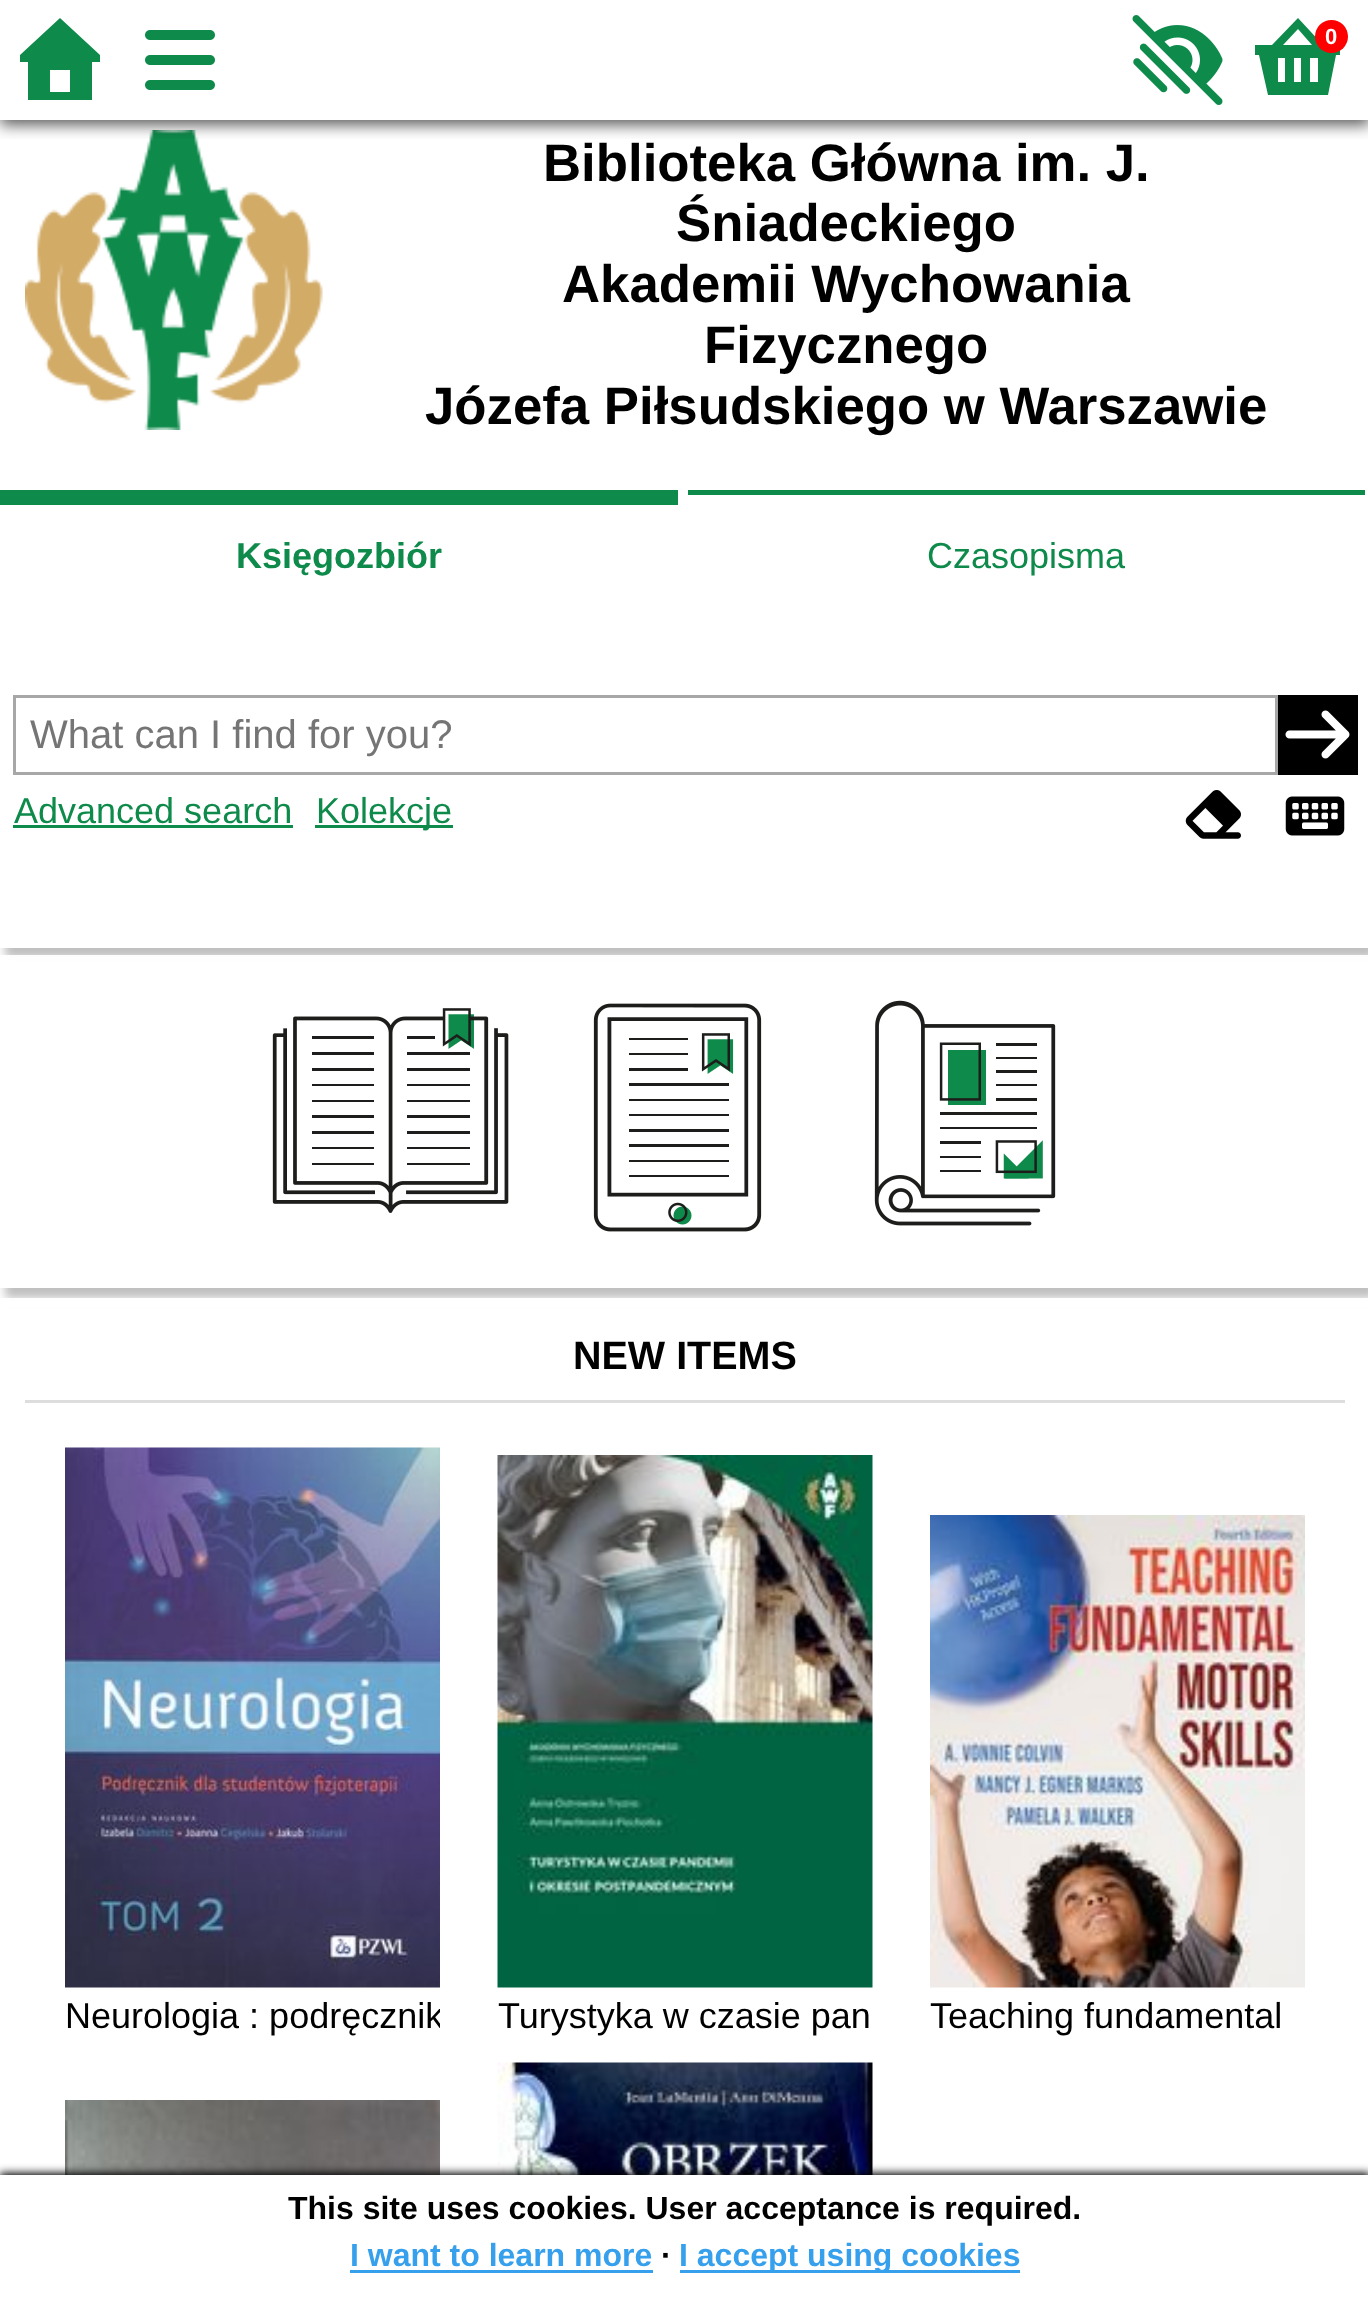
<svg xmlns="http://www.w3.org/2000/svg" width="1368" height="2319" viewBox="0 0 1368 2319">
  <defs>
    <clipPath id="clip1"><path d="M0 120h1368v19H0z"/></clipPath>
    <clipPath id="clip2"><path d="M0 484H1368V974H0ZM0 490H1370V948H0Z" clip-rule="evenodd"/></clipPath>
    <clipPath id="clip3"><path d="M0 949H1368V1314H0ZM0 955H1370V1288H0Z" clip-rule="evenodd"/></clipPath>
    <clipPath id="clip4"><path d="M65 1995h375v53H65z"/></clipPath>
  </defs>
  <rect width="100%" height="100%" fill="#fff"/>
  <image x="25" y="130" width="298" height="300" href="img/3.png"/>
  <g clip-path="url(#clip1)">
    <path d="M0 5h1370v120H0z" fill="#000000a6" filter="blur(7.5px)"/>
  </g>
  <path d="M100 62H92V100H28V62H20V55L60 18L100 55ZM70 92V70H50V92Z" fill="#0e8a4b"/>
  <image x="145" y="30" width="70" height="60" href="img/1.png"/>
  <image x="1132" y="15" width="91" height="90" href="img/2.png"/>
  <path d="M1298 18L1323 45H1340V55H1336L1328 95H1268L1259 55H1255V45H1272ZM1298 29L1283 45H1312ZM1285 61V58H1278V82H1285ZM1301 58H1294V82H1301ZM1318 61V58H1310V82H1318Z" fill="#0e8a4b"/>
  <circle cx="1331.5" cy="36.5" r="16.5" fill="#f00"/>
  <g clip-path="url(#clip2)">
    <path d="M5 500h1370v458H5z" fill="#00000040" filter="blur(5px)"/>
  </g>
  <path d="M0 947h1368v1H0z" fill="#fffffff2"/>
  <path d="M0 490h678v15H0z" fill="#0e8a4b"/>
  <path d="M688 490h677v5H688z" fill="#0e8a4b"/>
  <path d="M14.5 696.5h1262v77H14.5z" fill="none" stroke="#a7a7a7" stroke-width="3"/>
  <path d="M1278 695h80v80H1278z" fill="#000"/>
  <image x="1285" y="710" width="65" height="49" href="img/4.png"/>
  <path d="M13 825h280v3H13z" fill="#0e8a4b"/>
  <path d="M315 825h138v3H315z" fill="#0e8a4b"/>
  <image x="1185" y="790" width="56" height="49" href="img/5.png"/>
  <image x="1285" y="796" width="60" height="40" href="img/6.png"/>
  <g clip-path="url(#clip3)">
    <path d="M5 965h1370v333H5z" fill="#00000040" filter="blur(5px)"/>
  </g>
  <path d="M0 955h1368v333H0z" fill="#fffffff2"/>
  <image x="272" y="1008" width="237" height="205" href="img/7.png"/>
  <image x="593" y="1003" width="169" height="229" href="img/8.png"/>
  <image x="874" y="1000" width="182" height="226" href="img/9.png"/>
  <path d="M0 1298h1368v9H0z" fill="#fffffff2"/>
  <path d="M25 1400h1320v3H25z" fill="#ddd"/>
  <image x="65" y="1447" width="375" height="541" href="img/10.png"/>
  <image x="497" y="1455" width="376" height="533" href="img/11.png"/>
  <image x="930" y="1515" width="375" height="473" href="img/12.png"/>
  <image x="65" y="2100" width="375" height="75" href="img/13.png"/>
  <image x="497" y="2062" width="376" height="113" href="img/14.png"/>
  <path d="M0 2173h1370v145H0z" fill="#000" filter="blur(4px)"/>
  <path d="M0 2175h1368v144H0z" fill="#fff"/>
  <path d="M350 2270h303v3H350z" fill="#36a0ec"/>
  <path d="M680 2270h340v3H680z" fill="#36a0ec"/>
  <text x="1325" y="44" font-family="Liberation Sans" font-size="22" font-weight="bold" fill="#fff">0</text>
  <g font-family="Liberation Sans" font-size="52.75" font-weight="bold" fill="#000">
    <text x="543" y="181">Biblioteka Główna im. J.</text>
    <text x="676" y="241">Śniadeckiego</text>
    <text x="562" y="302">Akademii Wychowania</text>
    <text x="704" y="363">Fizycznego</text>
    <text x="425" y="424">Józefa Piłsudskiego w Warszawie</text>
  </g>
  <text x="236" y="568" font-family="Liberation Sans" font-size="36" font-weight="bold" fill="#0e8a4b">Księgozbiór</text>
  <text x="927" y="568" font-family="Liberation Sans" font-size="36" fill="#0e8a4b">Czasopisma</text>
  <text x="30" y="748" font-family="Liberation Sans" font-size="40" fill="#757575">What can I find for you?</text>
  <g font-family="Liberation Sans" font-size="36" fill="#0e8a4b">
    <text x="14" y="823">Advanced search</text>
    <text x="316" y="823">Kolekcje</text>
  </g>
  <text x="573" y="1369" font-family="Liberation Sans" font-size="39.5" font-weight="bold" fill="#000">NEW ITEMS</text>
  <g clip-path="url(#clip4)">
    <text x="65" y="2028" font-family="Liberation Sans" font-size="36" fill="#000">Neurologia : podręcznik</text>
  </g>
  <g font-family="Liberation Sans" font-size="36" fill="#000">
    <text x="498" y="2028">Turystyka w czasie pan</text>
    <text x="930" y="2028">Teaching fundamental</text>
  </g>
  <text x="288" y="2219" font-family="Liberation Sans" font-size="32" font-weight="bold" fill="#000">This site uses cookies. User acceptance is required.</text>
  <text x="350" y="2266" font-family="Liberation Sans" font-size="32" font-weight="bold" fill="#36a0ec">I want to learn more</text>
  <text x="661" y="2266" font-family="Liberation Sans" font-size="32" font-weight="bold" fill="#000">∙</text>
  <text x="679" y="2266" font-family="Liberation Sans" font-size="32" font-weight="bold" fill="#36a0ec">I accept using cookies</text>
</svg>
